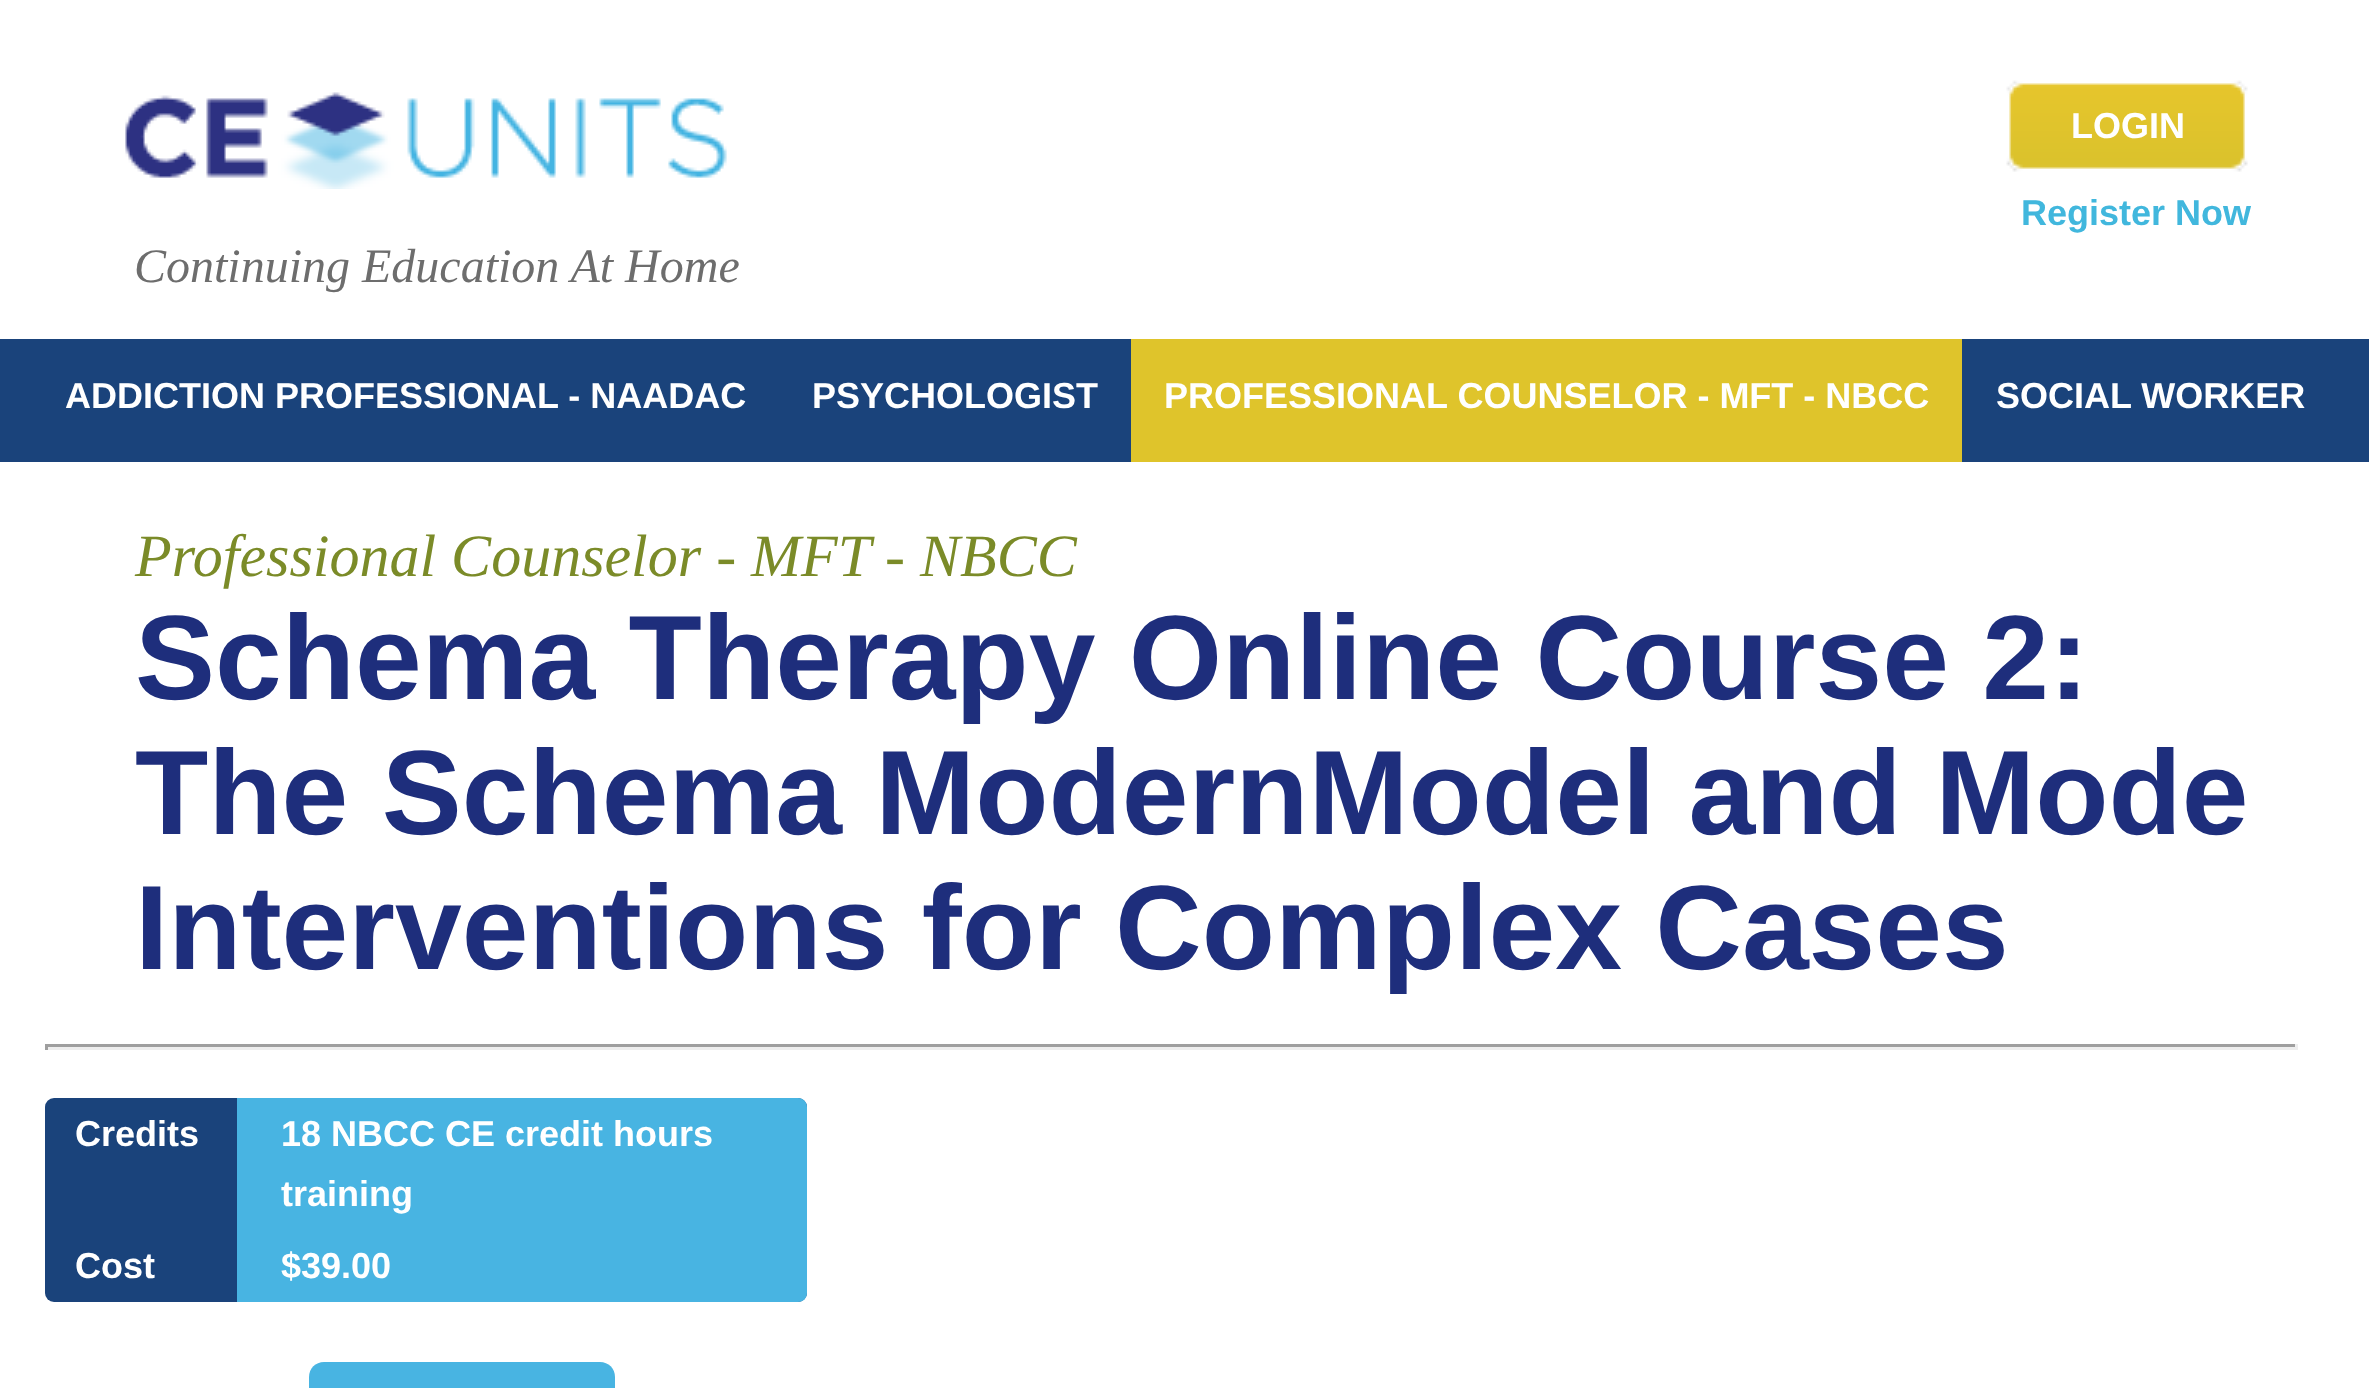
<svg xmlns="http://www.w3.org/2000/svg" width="2369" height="1388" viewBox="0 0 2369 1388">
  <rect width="100%" height="100%" fill="#fff"/>
  <image x="2006" y="80" width="242" height="92" href="img/1.png"/>
  <image x="125" y="92" width="602" height="97" href="img/2.png"/>
  <path d="M0 339h2369v123H0z" fill="#1a437b"/>
  <path d="M1131 339h831v123H1131z" fill="#dfc42b"/>
  <path d="M45 1044h2253v3H45z" fill="#9f9f9f"/>
  <path d="M2295 1044h3v6H2295z" fill="#eee"/>
  <path d="M45 1047h2253v3H45z" fill="#eee"/>
  <path d="M45 1044h3v6H45z" fill="#9f9f9f"/>
  <rect x="45" y="1098" width="762" height="204" rx="9" fill="#1a437b"/>
  <path d="M237 1098H798C803 1098 807 1102 807 1107V1230H237Z" fill="#48b4e2"/>
  <path d="M237 1230H807V1293C807 1298 803 1302 798 1302H237Z" fill="#48b4e2"/>
  <path d="M324 1362H600C608.5 1362 615 1368.5 615 1377V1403H309V1377C309 1368.5 315.5 1362 324 1362Z" fill="#48b4e2"/>
  <text x="2071" y="138" font-family="Liberation Sans" font-size="36" font-weight="bold" fill="#fff">LOGIN</text>
  <text x="2021" y="225" font-family="Liberation Sans" font-size="36" font-weight="bold" fill="#41b7dd">Register Now</text>
  <text x="134" y="282" font-family="Liberation Serif" font-size="48" font-style="italic" fill="#6d6d6d">Continuing Education At Home</text>
  <g font-family="Liberation Sans" font-size="36" font-weight="bold" fill="#fff">
    <text x="65" y="408">ADDICTION PROFESSIONAL - NAADAC</text>
    <text x="812" y="408">PSYCHOLOGIST</text>
    <text x="1164" y="408">PROFESSIONAL COUNSELOR - MFT - NBCC</text>
    <text x="1996" y="408">SOCIAL WORKER</text>
  </g>
  <text x="135" y="576" font-family="Liberation Serif" font-size="60" font-style="italic" fill="#7b8b28">Professional Counselor - MFT - NBCC</text>
  <g font-family="Liberation Sans" font-size="120" font-weight="bold" fill="#1e2e7c">
    <text x="135" y="699">Schema Therapy Online Course 2:</text>
    <text x="135" y="834">The Schema ModernModel and Mode</text>
    <text x="135" y="969">Interventions for Complex Cases</text>
  </g>
  <g font-family="Liberation Sans" font-size="36" font-weight="bold" fill="#fff">
    <text x="75" y="1146">Credits</text>
    <text x="281" y="1146">18 NBCC CE credit hours</text>
    <text x="281" y="1206">training</text>
    <text x="75" y="1278">Cost</text>
    <text x="281" y="1278">$39.00</text>
  </g>
</svg>
